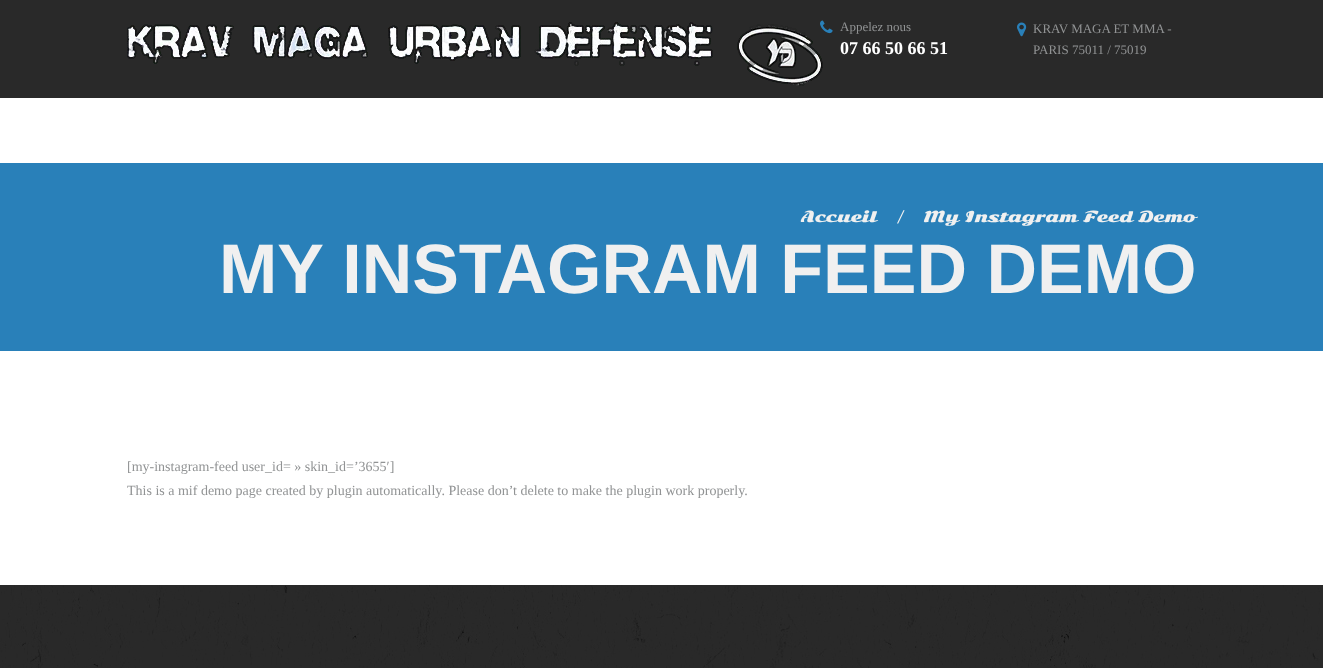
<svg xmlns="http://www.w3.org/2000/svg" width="1323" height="668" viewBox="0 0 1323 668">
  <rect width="100%" height="100%" fill="#fff"/>
  <path d="M0 0h1323v98H0z" fill="#292929"/>
  <image x="820" y="20" width="13" height="14" href="img/2.png"/>
  <image x="127" y="22" width="696" height="64" href="img/1.png"/>
  <image x="1017" y="22" width="10" height="15" href="img/3.png"/>
  <path d="M0 163h1323v188H0z" fill="#2980b9"/>
  <image x="0" y="585" width="1323" height="83" href="img/4.png"/>
  <text x="840" y="31" font-family="Liberation Serif" font-size="13" fill="#919394">Appelez nous</text>
  <text x="840" y="54" font-family="Liberation Serif" font-size="18" font-weight="bold" fill="#fff">07 66 50 66 51</text>
  <g font-family="Liberation Serif" font-size="13" fill="#919394">
    <text x="1033" y="33">KRAV MAGA ET MMA -</text>
    <text x="1033" y="54">PARIS 75011 / 75019</text>
  </g>
  <g font-family="Sonsie One" font-size="14.9" fill="#f0f0f0">
    <text x="801" y="222">Accueil</text>
    <text x="896" y="222">/</text>
    <text x="923" y="222">My Instagram Feed Demo</text>
  </g>
  <text x="219" y="293" font-family="Liberation Sans" font-size="70" font-weight="bold" fill="#f0f0f0">MY INSTAGRAM FEED DEMO</text>
  <g font-family="Liberation Serif" font-size="14" fill="#919394">
    <text x="127" y="471">[my-instagram-feed user_id= » skin_id=’3655′]</text>
    <text x="127" y="495">This is a mif demo page created by plugin automatically. Please don’t delete to make the plugin work properly.</text>
  </g>
</svg>
